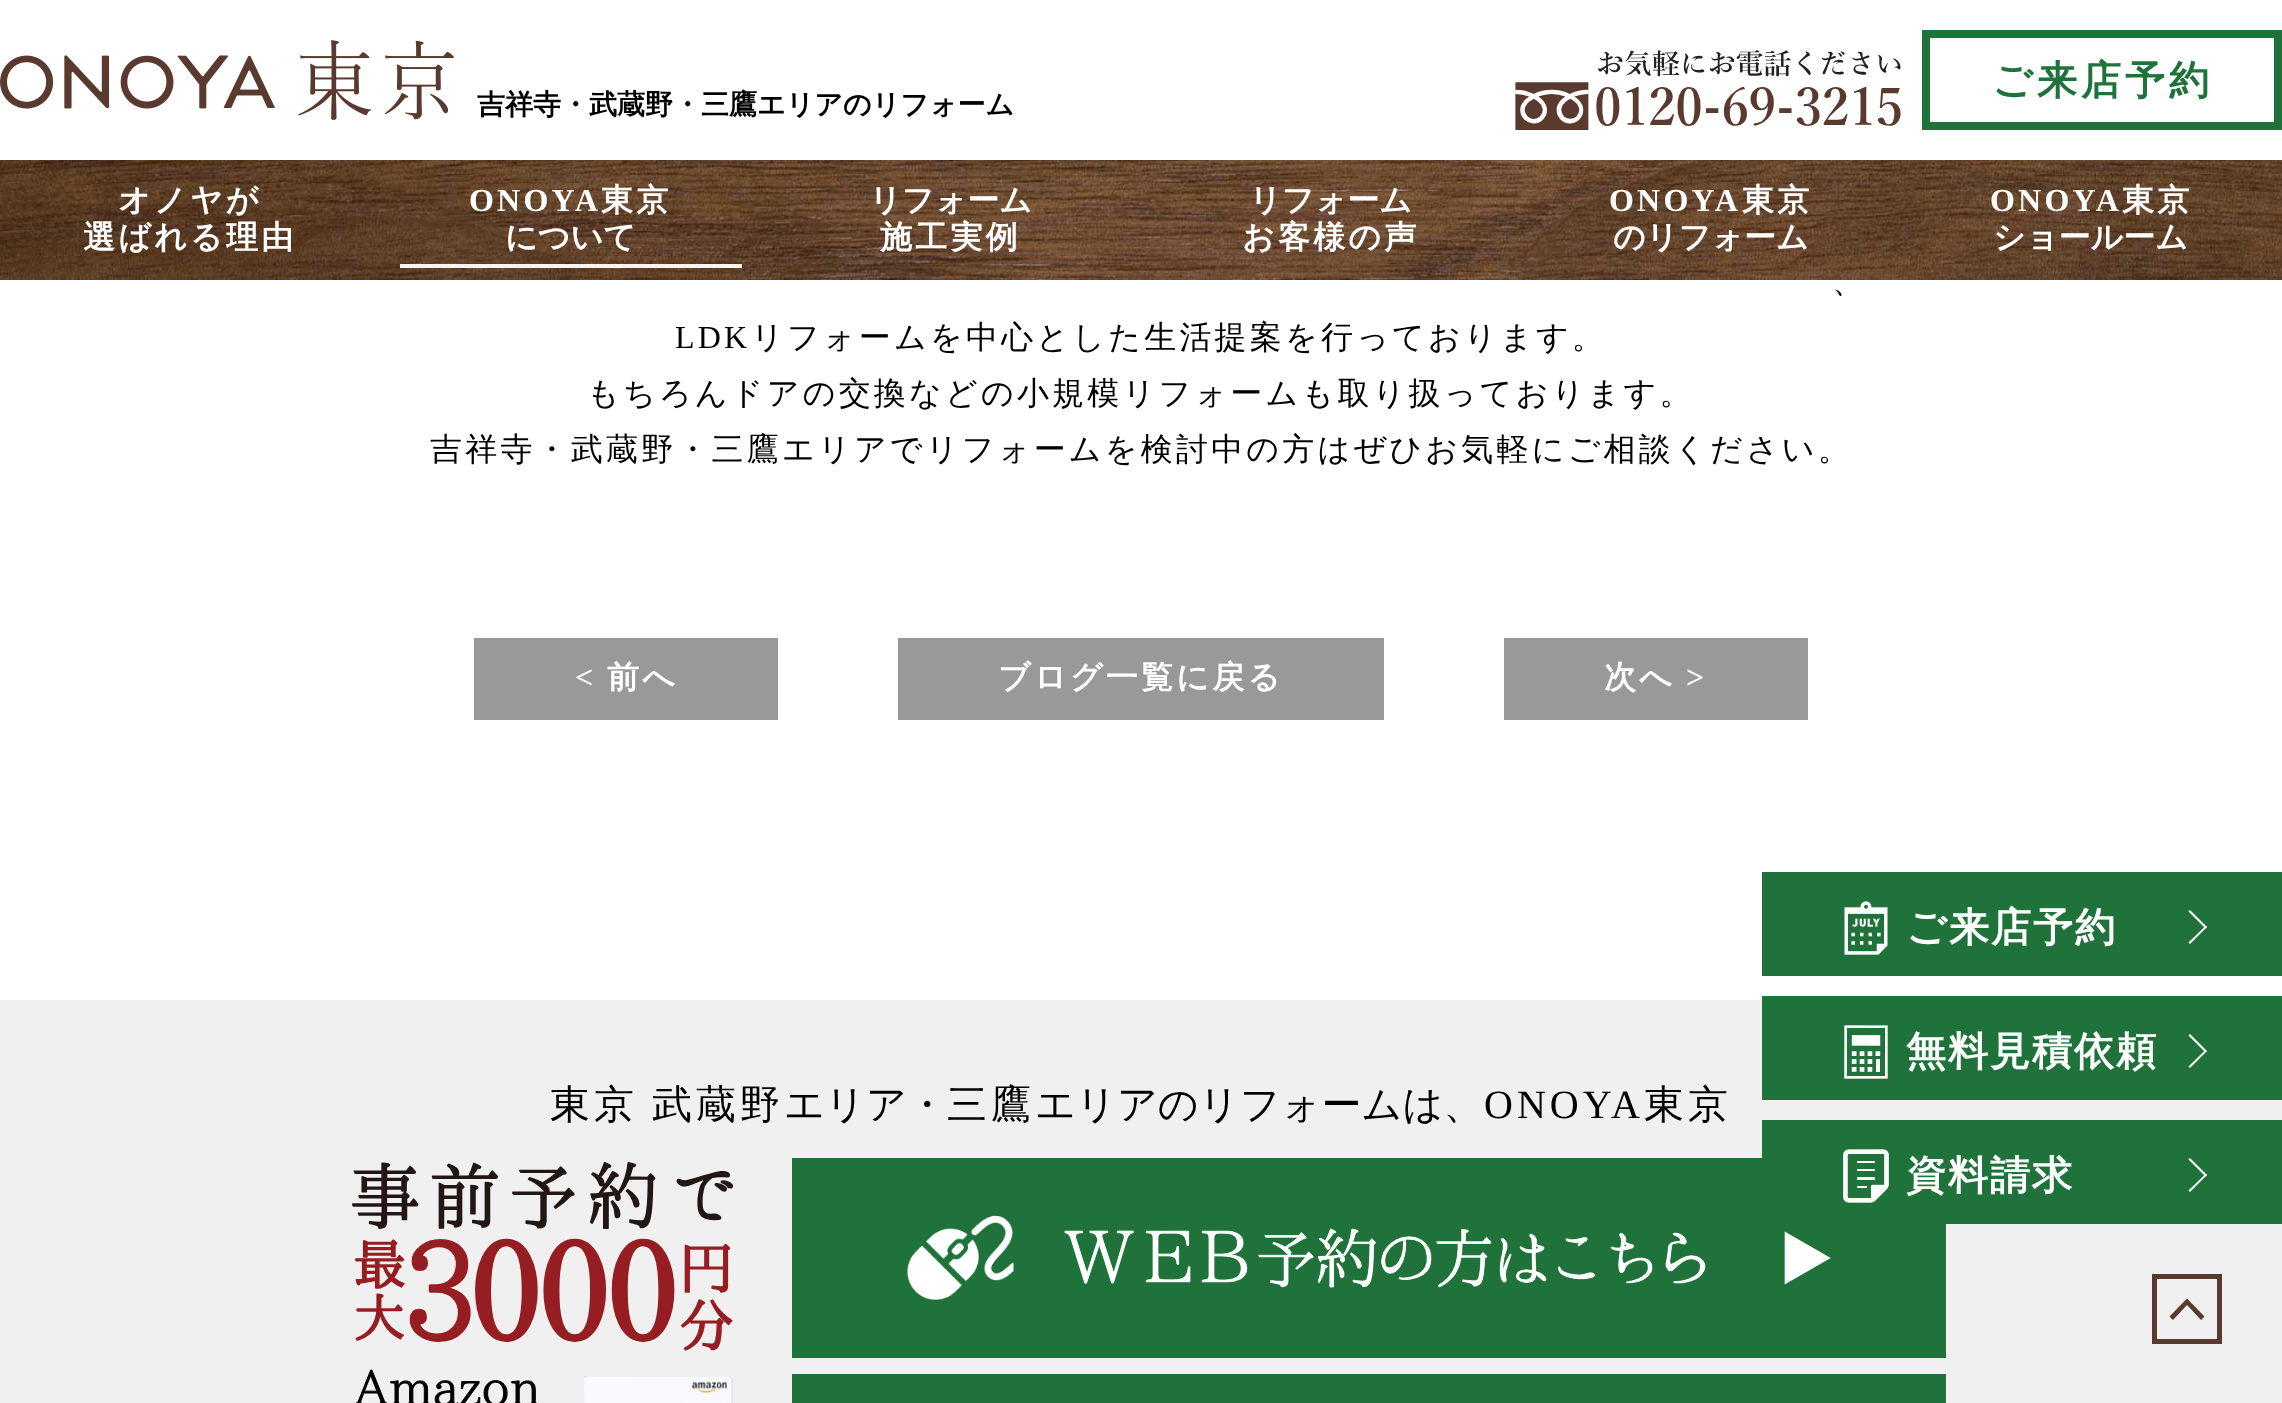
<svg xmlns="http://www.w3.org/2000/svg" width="2282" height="1403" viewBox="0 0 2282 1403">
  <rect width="100%" height="100%" fill="#fff"/>
  <image x="1515" y="50" width="386" height="80" href="img/1.png"/>
  <path d="M1926 34h352v92H1926z" fill="none" stroke="#20723b" stroke-width="8"/>
  <image x="0" y="40" width="454" height="80" href="img/2.png"/>
  <image x="0" y="160" width="2282" height="120" href="img/3.png"/>
  <path d="M400 264h342v4H400z" fill="#fffffff2"/>
  <path d="M474 638h304v82H474z" fill="#999"/>
  <path d="M898 638h486v82H898z" fill="#999"/>
  <path d="M1504 638h304v82H1504z" fill="#999"/>
  <path d="M0 1000h2282v403H0z" fill="#f0f0f0"/>
  <image x="352" y="1162" width="382" height="241" href="img/4.png"/>
  <image x="798" y="1164" width="1142" height="188" href="img/5.png"/>
  <path d="M795 1161h1148v194H795z" fill="none" stroke="#20723b" stroke-width="6"/>
  <path d="M792 1374h1154v29H792z" fill="#20723b"/>
  <path d="M1762 872h520v104H1762z" fill="#20723b"/>
  <image x="1844" y="901" width="44" height="54" href="img/6.png"/>
  <path d="M2190 910L2207 927L2205.5 928.5L2188.5 911.5Z" fill="#fff"/>
  <path d="M2205.5 926L2207 927L2190 944L2188.5 942.5Z" fill="#fff"/>
  <path d="M1762 996h520v104H1762z" fill="#20723b"/>
  <image x="1844" y="1025" width="44" height="54" href="img/7.png"/>
  <path d="M2190 1034L2207 1051L2205.5 1052.5L2188.5 1035.5Z" fill="#fff"/>
  <path d="M2205.5 1050L2207 1051L2190 1068L2188.5 1066.5Z" fill="#fff"/>
  <path d="M1762 1120h520v104H1762z" fill="#20723b"/>
  <image x="1843" y="1149" width="46" height="54" href="img/8.png"/>
  <path d="M2190 1158L2207 1175L2205.5 1176.5L2188.5 1159.5Z" fill="#fff"/>
  <path d="M2205.5 1174L2207 1175L2190 1192L2188.5 1190.5Z" fill="#fff"/>
  <path d="M2157 1279H2217V1339H2157V1279M2152 1274V1344H2222V1274Z" fill="#5a3a2f"/>
  <path d="M2187 1305L2173 1320L2169.5 1316.5L2187 1298.5L2204.5 1316.5L2201 1320Z" fill="#5a3a2f"/>
  <text x="1992" y="94" font-family="WenQuanYi Zen Hei" font-size="40" font-weight="bold" letter-spacing="4" fill="#20723b">ご来店予約</text>
  <text x="477" y="114" font-family="WenQuanYi Zen Hei" font-size="28" font-weight="bold" fill="#000">吉祥寺・武蔵野・三鷹エリアのリフォーム</text>
  <g font-family="WenQuanYi Zen Hei" font-size="32" font-weight="bold" letter-spacing="3.2" fill="#fff">
    <text x="118" y="211">オノヤが</text>
    <text x="83" y="248">選ばれる理由</text>
  </g>
  <text x="469" y="211" font-family="Liberation Serif" font-size="32" font-weight="bold" letter-spacing="3.2" fill="#fff">ONOYA</text>
  <text x="601" y="211" font-family="WenQuanYi Zen Hei" font-size="32" font-weight="bold" letter-spacing="3.2" fill="#fff">東京</text>
  <g font-family="WenQuanYi Zen Hei" font-size="32" font-weight="bold" fill="#fff">
    <text x="505" y="248">について</text>
    <text x="869" y="211">リフォーム</text>
  </g>
  <text x="880" y="248" font-family="WenQuanYi Zen Hei" font-size="32" font-weight="bold" letter-spacing="3.2" fill="#fff">施工実例</text>
  <text x="1249" y="211" font-family="WenQuanYi Zen Hei" font-size="32" font-weight="bold" fill="#fff">リフォーム</text>
  <text x="1242" y="248" font-family="WenQuanYi Zen Hei" font-size="32" font-weight="bold" letter-spacing="3.2" fill="#fff">お客様の声</text>
  <text x="1609" y="211" font-family="Liberation Serif" font-size="32" font-weight="bold" letter-spacing="3.2" fill="#fff">ONOYA</text>
  <text x="1742" y="211" font-family="WenQuanYi Zen Hei" font-size="32" font-weight="bold" letter-spacing="3.2" fill="#fff">東京</text>
  <text x="1613" y="248" font-family="WenQuanYi Zen Hei" font-size="32" font-weight="bold" fill="#fff">のリフォーム</text>
  <text x="1990" y="211" font-family="Liberation Serif" font-size="32" font-weight="bold" letter-spacing="3.2" fill="#fff">ONOYA</text>
  <text x="2122" y="211" font-family="WenQuanYi Zen Hei" font-size="32" font-weight="bold" letter-spacing="3.2" fill="#fff">東京</text>
  <text x="1993" y="248" font-family="WenQuanYi Zen Hei" font-size="32" font-weight="bold" fill="#fff">ショールーム</text>
  <text x="1832" y="292" word-spacing="-2" font-family="WenQuanYi Zen Hei" font-size="32" font-weight="500" letter-spacing="3.2" fill="#000">、</text>
  <text x="675" y="348" font-family="Liberation Serif" font-size="32" letter-spacing="3.2" fill="#000">LDK</text>
  <g font-family="WenQuanYi Zen Hei" font-size="32" font-weight="500" letter-spacing="3.2" fill="#000">
    <text x="751" y="348">リフォームを中心とした生活提案を行っております。</text>
    <text x="587" y="404">もちろんドアの交換などの小規模リフォームも取り扱っております。</text>
    <text x="430" y="460">吉祥寺・武蔵野・三鷹エリアでリフォームを検討中の方はぜひお気軽にご相談ください。</text>
  </g>
  <text x="575" y="688" font-family="Liberation Serif" font-size="32" font-weight="bold" letter-spacing="3.2" fill="#fff">&lt;</text>
  <g font-family="WenQuanYi Zen Hei" font-size="32" font-weight="bold" letter-spacing="3.2" fill="#fff">
    <text x="607" y="688">前へ</text>
    <text x="998" y="688">ブログ一覧に戻る</text>
    <text x="1604" y="688">次へ</text>
  </g>
  <text x="1686" y="688" font-family="Liberation Serif" font-size="32" font-weight="bold" letter-spacing="3.2" fill="#fff">&gt;</text>
  <text x="550" y="1118" word-spacing="-2" font-family="WenQuanYi Zen Hei" font-size="40" font-weight="500" letter-spacing="4" fill="#000">東京 武蔵野</text>
  <text x="784" y="1118" font-family="WenQuanYi Zen Hei" font-size="40" font-weight="500" fill="#000">エリア・</text>
  <text x="947" y="1118" font-family="WenQuanYi Zen Hei" font-size="40" font-weight="500" letter-spacing="4" fill="#000">三鷹</text>
  <text x="1035" y="1118" font-family="WenQuanYi Zen Hei" font-size="40" font-weight="500" fill="#000">エリアのリフォームは、</text>
  <text x="1484" y="1118" font-family="Liberation Serif" font-size="40" letter-spacing="4" fill="#000">ONOYA</text>
  <text x="1644" y="1118" font-family="WenQuanYi Zen Hei" font-size="40" font-weight="500" letter-spacing="4" fill="#000">東京</text>
  <g font-family="WenQuanYi Zen Hei" font-size="40" font-weight="bold" letter-spacing="2" fill="#fff">
    <text x="1906" y="941">ご来店予約</text>
    <text x="1906" y="1065">無料見積依頼</text>
    <text x="1906" y="1189">資料請求</text>
  </g>
</svg>
